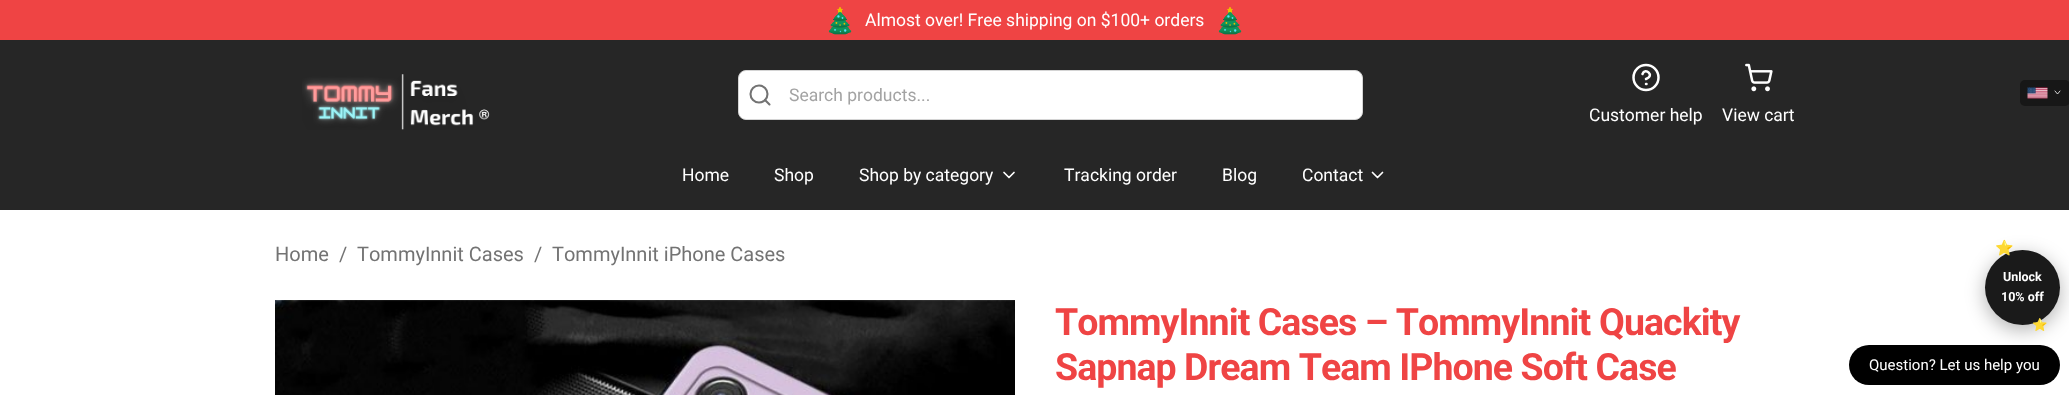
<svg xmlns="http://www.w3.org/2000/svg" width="2069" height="395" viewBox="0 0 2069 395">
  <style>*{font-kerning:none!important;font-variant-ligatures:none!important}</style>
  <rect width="100%" height="100%" fill="#fff"/>
  <path d="M0 0h2069v40H0z" fill="#ef4444"/>
  <image x="828" y="7" width="24" height="28" href="img/1.png"/>
  <image x="1218" y="7" width="24" height="28" href="img/2.png"/>
  <path d="M0 40h2069v170H0z" fill="#262626"/>
  <image x="302" y="74" width="188" height="56" href="img/3.png"/>
  <rect x="738.5" y="70.5" width="624" height="49" rx="7.5" fill="#fff" stroke="#d4d4d4"/>
  <path d="M769.5 104.5L765 100" fill="none" stroke="#737373" stroke-width="2.1" stroke-linecap="round" stroke-linejoin="round"/>
  <circle cx="759" cy="94" r="8.5" fill="none" stroke="#737373" stroke-width="2.1"/>
  <circle cx="1646" cy="77.5" r="12.5" fill="none" stroke="#fff" stroke-width="2.5"/>
  <path d="M1642.5 74C1645 67 1655.5 75.5 1646 79M1646 84H1646.5" fill="none" stroke="#fff" stroke-width="2.5" stroke-linecap="round" stroke-linejoin="round"/>
  <image x="1745" y="63" width="28" height="29" href="img/4.png"/>
  <path d="M1004 172.5L1009 177.5L1014 172.5" fill="none" stroke="#fff" stroke-width="1.7" stroke-linecap="round" stroke-linejoin="round"/>
  <path d="M1372.5 172.5L1377.5 177.5L1382.5 172.5" fill="none" stroke="#fff" stroke-width="1.7" stroke-linecap="round" stroke-linejoin="round"/>
  <rect x="2020" y="80" width="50" height="26" rx="5" fill="#171717"/>
  <image x="2027" y="87" width="21" height="12" href="img/5.png"/>
  <path d="M2055 91L2057.5 94L2060 91" fill="none" stroke="#fff" stroke-width="0.8" stroke-linecap="round" stroke-linejoin="round"/>
  <image x="275" y="300" width="740" height="95" href="img/6.png"/>
  <rect x="1849" y="345" width="211" height="40" rx="20" fill="#000"/>
  <rect x="1985" y="255" width="75" height="75" rx="37.5" fill="#0000004d" filter="blur(9.5px)"/>
  <circle cx="2022.5" cy="287.5" r="37.5" fill="#1a1a1a"/>
  <text x="865" y="26" font-family="Roboto" font-size="17.5" fill="#fff">Almost over! Free shipping on $100+ orders</text>
  <text x="789" y="101" font-family="Roboto" font-size="17.5" fill="#a3a3a3">Search products...</text>
  <g font-family="Roboto" font-size="17.5" fill="#fff">
    <text x="1589" y="121">Customer help</text>
    <text x="1722" y="121">View cart</text>
    <text x="682" y="181">Home</text>
    <text x="774" y="181">Shop</text>
    <text x="859" y="181">Shop by category</text>
    <text x="1064" y="181">Tracking order</text>
    <text x="1222" y="181">Blog</text>
    <text x="1302" y="181">Contact</text>
  </g>
  <g font-family="Roboto" font-size="20" fill="#737373">
    <text x="275" y="261">Home</text>
    <text x="339" y="261">/</text>
    <text x="357" y="261">TommyInnit Cases</text>
    <text x="534" y="261">/</text>
    <text x="552" y="261">TommyInnit iPhone Cases</text>
  </g>
  <g font-family="Roboto" font-size="37.5" font-weight="bold" letter-spacing="-0.95" fill="#ef4444">
    <text x="1055" y="335">TommyInnit Cases – TommyInnit</text>
    <text x="1599" y="335">Quackity</text>
    <text x="1055" y="380">Sapnap Dream Team IPhone Soft Case</text>
  </g>
  <text x="1995" y="253" font-family="Noto Color Emoji" font-size="15" font-weight="bold" fill="#ffd700">⭐</text>
  <g font-family="Roboto" font-size="12.5" font-weight="bold" fill="#fff">
    <text x="2003" y="281">Unlock</text>
    <text x="2001" y="301">10% off</text>
  </g>
  <text x="2032" y="329" font-family="Noto Color Emoji" font-size="12.5" font-weight="bold" fill="#ffd700">⭐</text>
  <text x="1869" y="370" font-family="Roboto" font-size="15" fill="#fff">Question? Let us help you</text>
</svg>
